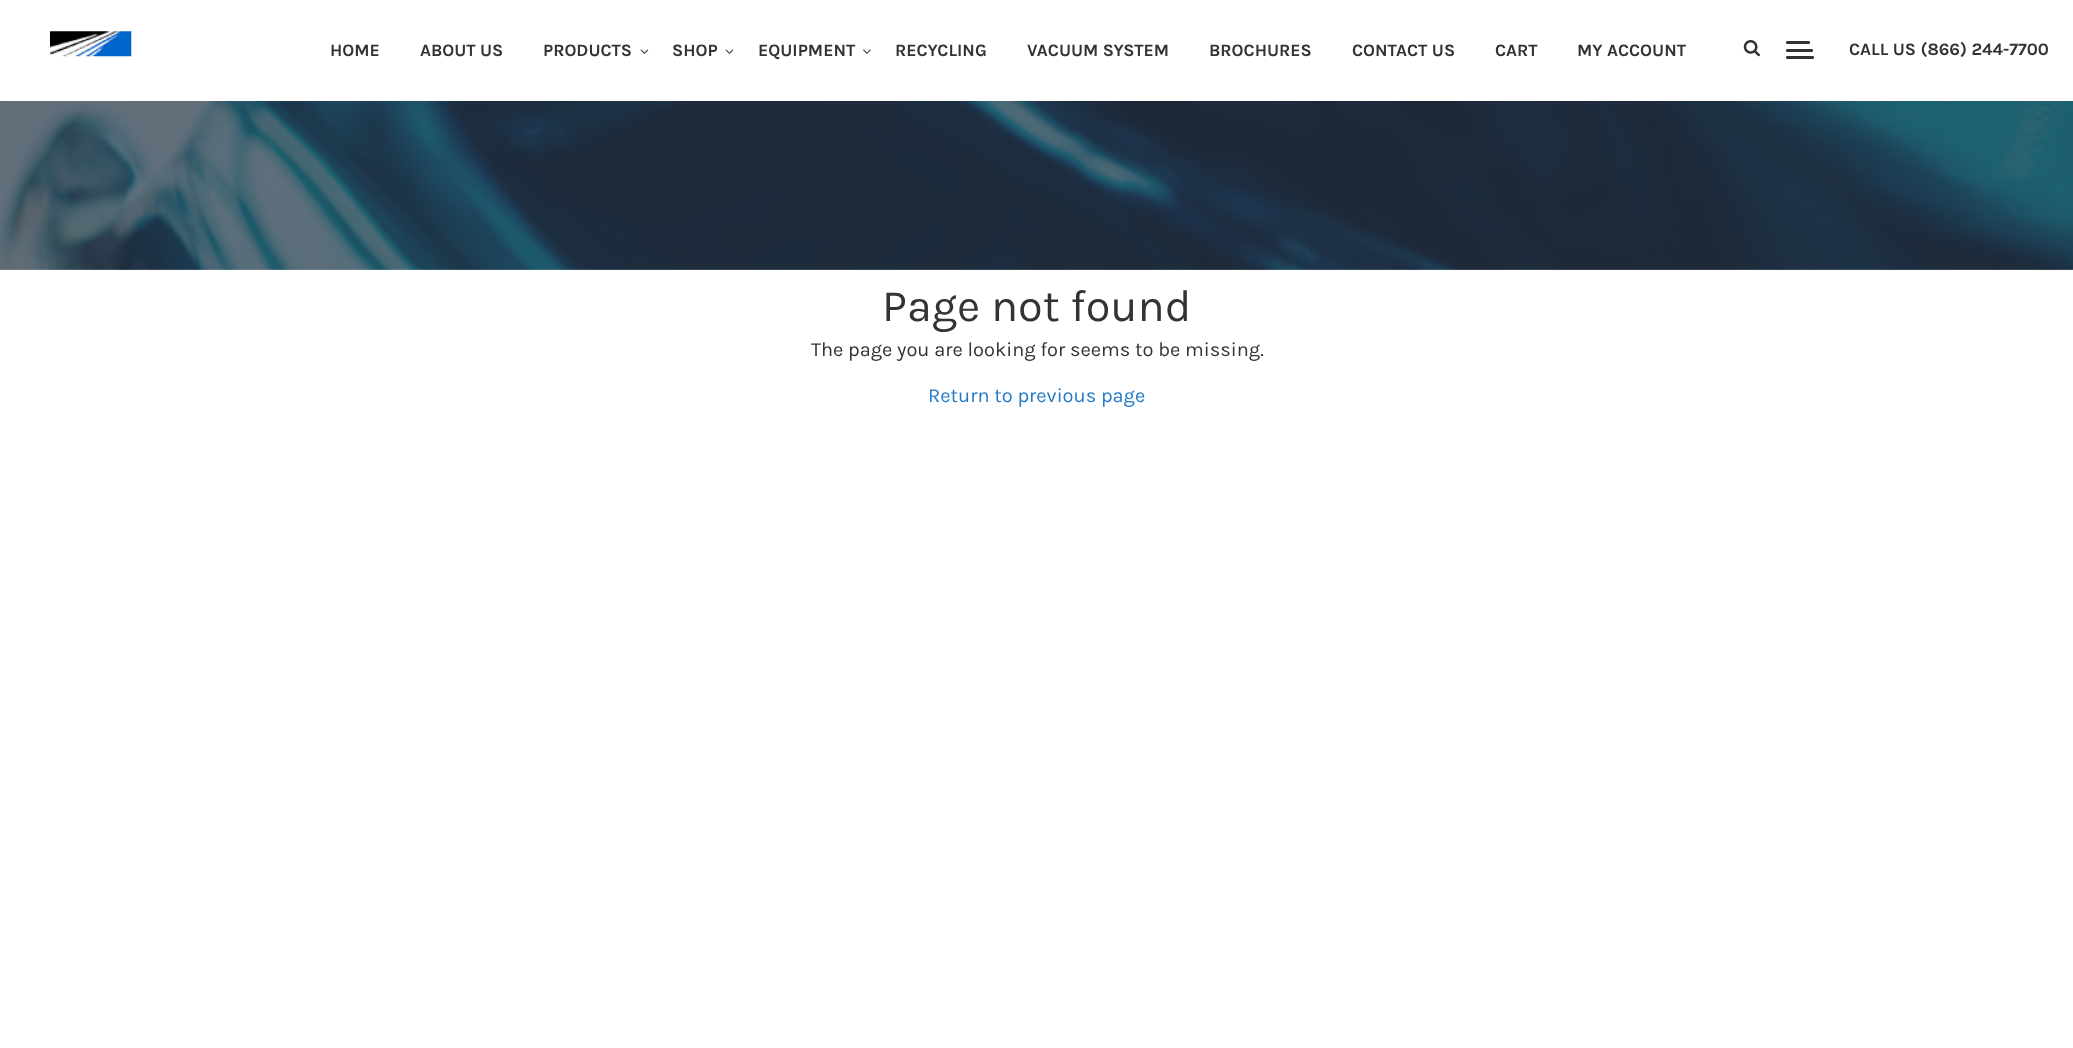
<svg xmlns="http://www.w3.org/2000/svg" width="2073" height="1048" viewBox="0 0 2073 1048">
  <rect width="100%" height="100%" fill="#fff"/>
  <image x="50" y="31" width="82" height="26" href="img/1.png"/>
  <image x="640" y="49" width="9" height="5" href="img/2.png"/>
  <image x="725" y="49" width="9" height="5" href="img/2.png"/>
  <image x="863" y="49" width="8" height="5" href="img/3.png"/>
  <image x="1743" y="40" width="17" height="17" href="img/4.png"/>
  <path d="M1787.5 41H1800V44H1787.5C1786.5 44 1786 43.5 1786 42.5C1786 41.5 1786.5 41 1787.5 41Z" fill="#333"/>
  <path d="M1800 41H1808.5C1809.5 41 1810 41.5 1810 42.5C1810 43.5 1809.5 44 1808.5 44H1800Z" fill="#333"/>
  <path d="M1787.5 49H1800V52H1787.5C1786.5 52 1786 51.5 1786 50.5C1786 49.5 1786.5 49 1787.5 49Z" fill="#333"/>
  <path d="M1800 49H1811.5C1812.5 49 1813 49.5 1813 50.5C1813 51.5 1812.5 52 1811.5 52H1800Z" fill="#333"/>
  <path d="M1787.5 56H1800V59H1787.5C1786.5 59 1786 58.5 1786 57.5C1786 56.5 1786.5 56 1787.5 56Z" fill="#333"/>
  <path d="M1800 56H1812.5C1813.5 56 1814 56.5 1814 57.5C1814 58.5 1813.5 59 1812.5 59H1800Z" fill="#333"/>
  <image x="0" y="101" width="2073" height="169" href="img/5.png"/>
  <g font-family="Karla" font-size="17.5" font-weight="bold" fill="#333">
    <text x="330" y="56">HOME</text>
    <text x="420" y="56">ABOUT US</text>
    <text x="543" y="56">PRODUCTS</text>
    <text x="672" y="56">SHOP</text>
    <text x="758" y="56">EQUIPMENT</text>
    <text x="895" y="56">RECYCLING</text>
    <text x="1027" y="56">VACUUM SYSTEM</text>
    <text x="1209" y="56">BROCHURES</text>
    <text x="1352" y="56">CONTACT US</text>
    <text x="1495" y="56">CART</text>
    <text x="1577" y="56">MY ACCOUNT</text>
    <text x="1849" y="55">CALL US (866) 244-7700</text>
  </g>
  <text x="882" y="321" font-family="Karla" font-size="45" fill="#333">Page not found</text>
  <text x="811" y="356" font-family="Karla" font-size="20" fill="#333">The page you are looking for seems to be missing.</text>
  <text x="928" y="402" font-family="Karla" font-size="20" fill="#237ac6">Return to previous page</text>
</svg>
